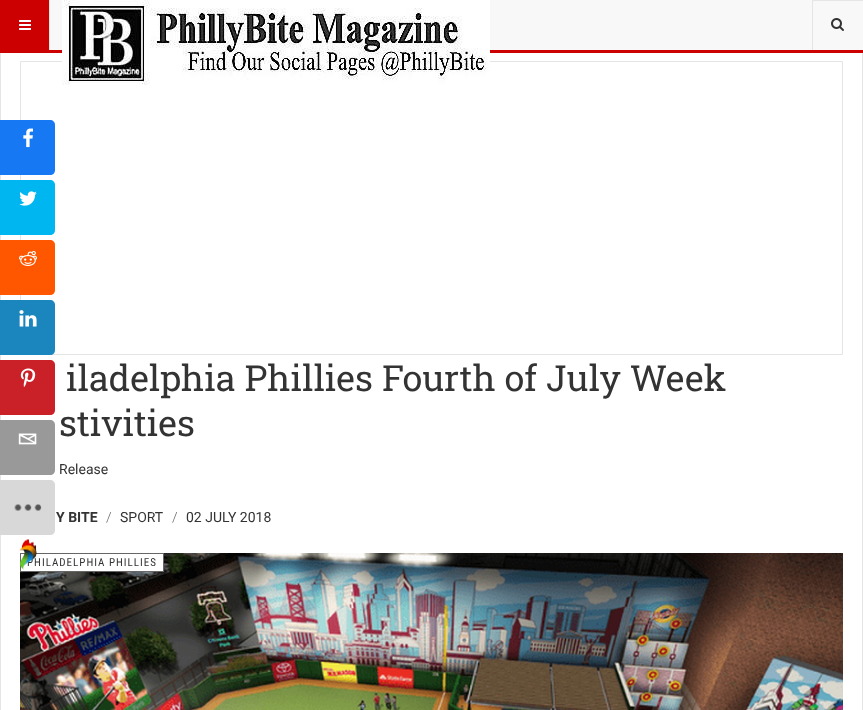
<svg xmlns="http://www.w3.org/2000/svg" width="863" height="710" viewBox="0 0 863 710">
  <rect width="100%" height="100%" fill="#fff"/>
  <path d="M0.5 37.5h862v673H0.5z" fill="none" stroke="#e5e5e5"/>
  <path d="M20.5 61.5h822v293H20.5z" fill="none" stroke="#e5e5e5"/>
  <path d="M0 120H50C53 120 55 122 55 125V170C55 173 53 175 50 175H0Z" fill="#1678f2"/>
  <image x="23" y="128" width="10" height="20" href="img/1.png"/>
  <path d="M0 180H50C53 180 55 182 55 185V230C55 233 53 235 50 235H0Z" fill="#00b6f1"/>
  <image x="19" y="191" width="18" height="15" href="img/2.png"/>
  <path d="M0 240H50C53 240 55 242 55 245V290C55 293 53 295 50 295H0Z" fill="#ff5700"/>
  <image x="19" y="251" width="18" height="15" href="img/3.png"/>
  <path d="M0 300H50C53 300 55 302 55 305V350C55 353 53 355 50 355H0Z" fill="#1b86bd"/>
  <image x="19" y="310" width="18" height="17" href="img/4.png"/>
  <path d="M0 360H50C53 360 55 362 55 365V410C55 413 53 415 50 415H0Z" fill="#ca2128"/>
  <image x="20" y="368" width="16" height="19" href="img/5.png"/>
  <path d="M0 420H50C53 420 55 422 55 425V470C55 473 53 475 50 475H0Z" fill="#999"/>
  <image x="18" y="433" width="19" height="12" href="img/6.png"/>
  <path d="M0 480H50C53 480 55 482 55 485V530C55 533 53 535 50 535H0Z" fill="#d8d8d8"/>
  <image x="14" y="504" width="28" height="7" href="img/7.png"/>
  <path d="M50 0h813v50H50z" fill="#f8f8f8"/>
  <path d="M0 50h863v3H0z" fill="#c00"/>
  <path d="M0 0h49v50H0z" fill="#c00"/>
  <path d="M49 0h1v50H49z" fill="#e5e5e5"/>
  <image x="19" y="20" width="12" height="10" href="img/9.png"/>
  <image x="62" y="0" width="428" height="85" href="img/10.png"/>
  <path d="M813 0h50v1H813z" fill="#e5e5e5"/>
  <path d="M812 0h1v50H812z" fill="#e5e5e5"/>
  <image x="831" y="18" width="13" height="13" href="img/11.png"/>
  <image x="20" y="553" width="823" height="157" href="img/12.png"/>
  <path d="M20.5 553.5h143v18H20.5z" fill="#fff" stroke="#666"/>
  <g font-family="Roboto Slab" font-size="36" fill="#333">
    <text x="66" y="391">iladelphia Phillies Fourth of July Week</text>
    <text x="59" y="436">stivities</text>
  </g>
  <text x="59" y="474" font-family="Roboto" font-size="14" fill="#333">Release</text>
  <text x="56" y="522" font-family="Roboto" font-size="14" font-weight="bold" fill="#333">Y BITE</text>
  <text x="106" y="522" font-family="Roboto" font-size="14" font-weight="300" fill="#666">/</text>
  <text x="120" y="522" font-family="Roboto" font-size="14" fill="#333">SPORT</text>
  <text x="172" y="522" font-family="Roboto" font-size="14" font-weight="300" fill="#666">/</text>
  <text x="186" y="522" font-family="Roboto" font-size="14" fill="#333">02 JULY 2018</text>
  <text x="27" y="566" font-family="Roboto Condensed" font-size="11" letter-spacing="1" fill="#333">PHILADELPHIA PHILLIES</text>
  <image x="19" y="539" width="18" height="31" href="img/8.png"/>
</svg>
